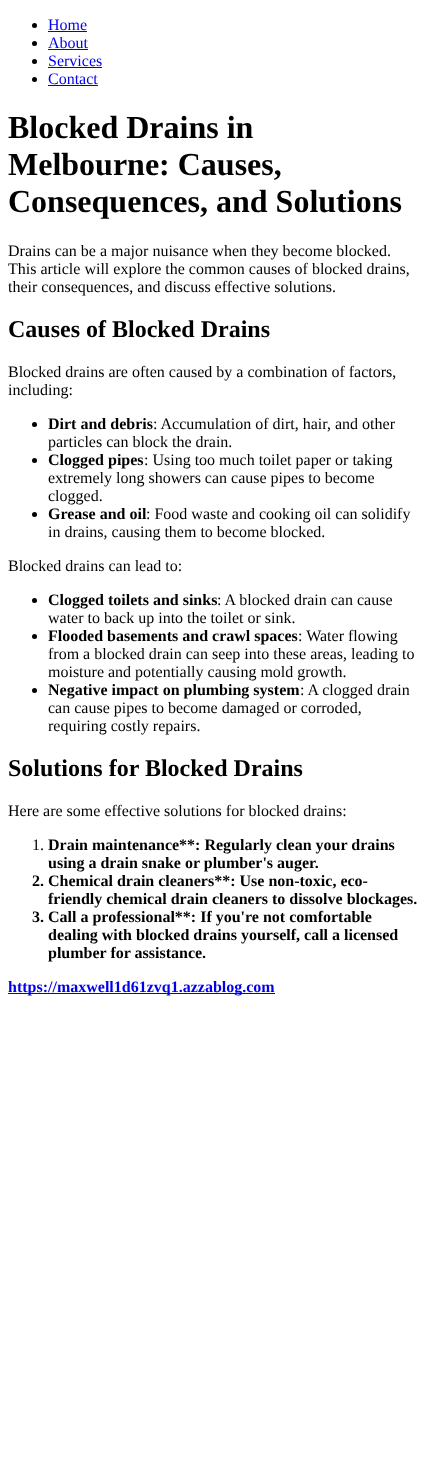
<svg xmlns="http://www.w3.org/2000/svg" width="430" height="1465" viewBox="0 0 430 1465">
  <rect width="100%" height="100%" fill="#fff"/>
  <circle cx="34.5" cy="25.5" r="2.5" fill="#000"/>
  <path d="M48 31h39v1H48z" fill="#00e"/>
  <circle cx="34.5" cy="43.5" r="2.5" fill="#000"/>
  <path d="M48 49h40v1H48z" fill="#00e"/>
  <circle cx="34.5" cy="61.5" r="2.5" fill="#000"/>
  <path d="M48 67h54v1H48z" fill="#00e"/>
  <circle cx="34.5" cy="79.5" r="2.5" fill="#000"/>
  <path d="M48 85h50v1H48z" fill="#00e"/>
  <circle cx="34.5" cy="424.5" r="2.5" fill="#000"/>
  <circle cx="34.5" cy="460.5" r="2.5" fill="#000"/>
  <circle cx="34.5" cy="514.5" r="2.5" fill="#000"/>
  <circle cx="34.5" cy="600.5" r="2.5" fill="#000"/>
  <circle cx="34.5" cy="636.5" r="2.5" fill="#000"/>
  <circle cx="34.5" cy="690.5" r="2.5" fill="#000"/>
  <path d="M8 993h267v1H8z" fill="#00e"/>
  <g font-family="Liberation Serif" font-size="16" fill="#00e">
    <text x="48" y="30">Home</text>
    <text x="48" y="48">About</text>
    <text x="48" y="66">Services</text>
    <text x="48" y="84">Contact</text>
  </g>
  <g font-family="Liberation Serif" font-size="32" font-weight="bold" fill="#000">
    <text x="8" y="138">Blocked Drains in</text>
    <text x="8" y="175">Melbourne: Causes,</text>
    <text x="8" y="212">Consequences, and Solutions</text>
  </g>
  <g font-family="Liberation Serif" font-size="16" fill="#000">
    <text x="8" y="256">Drains can be a major nuisance when they become blocked.</text>
    <text x="8" y="274">This article will explore the common causes of blocked drains,</text>
    <text x="8" y="292">their consequences, and discuss effective solutions.</text>
  </g>
  <text x="8" y="337" font-family="Liberation Serif" font-size="24" font-weight="bold" fill="#000">Causes of Blocked Drains</text>
  <g font-family="Liberation Serif" font-size="16" fill="#000">
    <text x="8" y="377">Blocked drains are often caused by a combination of factors,</text>
    <text x="8" y="395">including:</text>
  </g>
  <text x="48" y="429" font-family="Liberation Serif" font-size="16" font-weight="bold" fill="#000">Dirt and debris</text>
  <g font-family="Liberation Serif" font-size="16" fill="#000">
    <text x="153" y="429">: Accumulation of dirt, hair, and other</text>
    <text x="48" y="447">particles can block the drain.</text>
  </g>
  <text x="48" y="465" font-family="Liberation Serif" font-size="16" font-weight="bold" fill="#000">Clogged pipes</text>
  <g font-family="Liberation Serif" font-size="16" fill="#000">
    <text x="144" y="465">: Using too much toilet paper or taking</text>
    <text x="48" y="483">extremely long showers can cause pipes to become</text>
    <text x="48" y="501">clogged.</text>
  </g>
  <text x="48" y="519" font-family="Liberation Serif" font-size="16" font-weight="bold" fill="#000">Grease and oil</text>
  <g font-family="Liberation Serif" font-size="16" fill="#000">
    <text x="146" y="519">: Food waste and cooking oil can solidify</text>
    <text x="48" y="537">in drains, causing them to become blocked.</text>
    <text x="8" y="571">Blocked drains can lead to:</text>
  </g>
  <text x="48" y="605" font-family="Liberation Serif" font-size="16" font-weight="bold" fill="#000">Clogged toilets and sinks</text>
  <g font-family="Liberation Serif" font-size="16" fill="#000">
    <text x="217" y="605">: A blocked drain can cause</text>
    <text x="48" y="623">water to back up into the toilet or sink.</text>
  </g>
  <text x="48" y="641" font-family="Liberation Serif" font-size="16" font-weight="bold" fill="#000">Flooded basements and crawl spaces</text>
  <g font-family="Liberation Serif" font-size="16" fill="#000">
    <text x="298" y="641">: Water flowing</text>
    <text x="48" y="659">from a blocked drain can seep into these areas, leading to</text>
    <text x="48" y="677">moisture and potentially causing mold growth.</text>
  </g>
  <text x="48" y="695" font-family="Liberation Serif" font-size="16" font-weight="bold" fill="#000">Negative impact on plumbing system</text>
  <g font-family="Liberation Serif" font-size="16" fill="#000">
    <text x="300" y="695">: A clogged drain</text>
    <text x="48" y="713">can cause pipes to become damaged or corroded,</text>
    <text x="48" y="731">requiring costly repairs.</text>
  </g>
  <text x="8" y="776" font-family="Liberation Serif" font-size="24" font-weight="bold" fill="#000">Solutions for Blocked Drains</text>
  <g font-family="Liberation Serif" font-size="16" fill="#000">
    <text x="8" y="816">Here are some effective solutions for blocked drains:</text>
    <text x="32" y="850">1.</text>
  </g>
  <g font-family="Liberation Serif" font-size="16" font-weight="bold" fill="#000">
    <text x="48" y="850">Drain maintenance**: Regularly clean your drains</text>
    <text x="48" y="868">using a drain snake or plumber's auger.</text>
    <text x="32" y="886">2. Chemical drain cleaners**: Use non-toxic, eco-</text>
    <text x="48" y="904">friendly chemical drain cleaners to dissolve blockages.</text>
    <text x="32" y="922">3. Call a professional**: If you're not comfortable</text>
    <text x="48" y="940">dealing with blocked drains yourself, call a licensed</text>
    <text x="48" y="958">plumber for assistance.</text>
  </g>
  <text x="8" y="992" font-family="Liberation Serif" font-size="16" font-weight="bold" fill="#00e">https://maxwell1d61zvq1.azzablog.com</text>
</svg>
